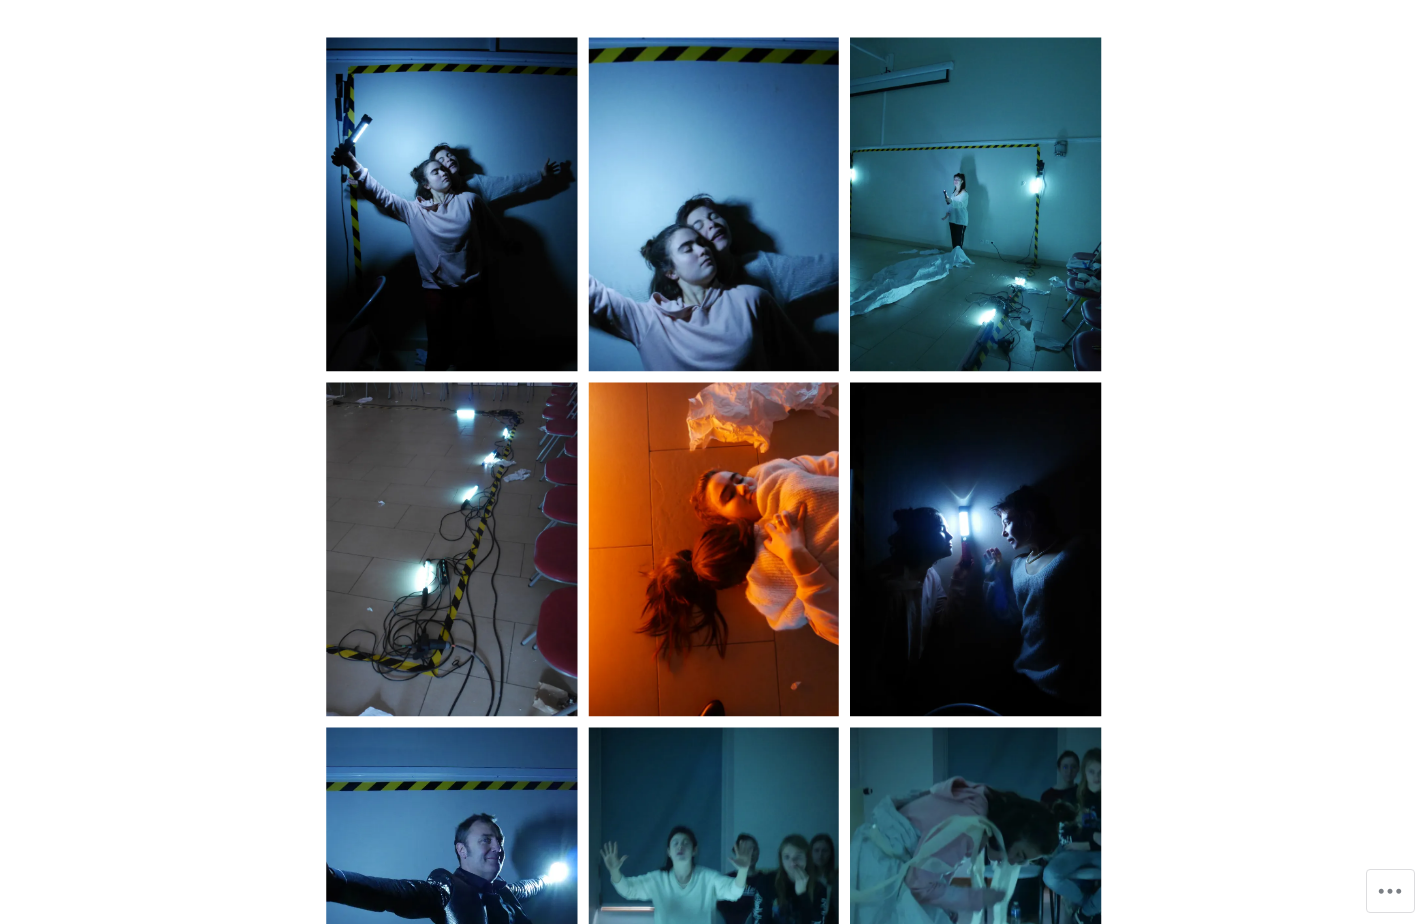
<svg xmlns="http://www.w3.org/2000/svg" width="1427" height="924" viewBox="0 0 1427 924">
  <rect width="100%" height="100%" fill="#fff"/>
  <image x="326" y="37" width="252" height="335" href="img/1.png"/>
  <image x="588" y="37" width="251" height="335" href="img/2.png"/>
  <image x="850" y="37" width="252" height="335" href="img/3.png"/>
  <image x="326" y="382" width="252" height="335" href="img/4.png"/>
  <image x="588" y="382" width="251" height="335" href="img/5.png"/>
  <image x="850" y="382" width="252" height="335" href="img/6.png"/>
  <image x="326" y="727" width="252" height="197" href="img/7.png"/>
  <image x="588" y="727" width="251" height="197" href="img/8.png"/>
  <image x="850" y="727" width="252" height="197" href="img/9.png"/>
  <rect x="1366.5" y="869.5" width="48" height="43" rx="3.5" fill="none" stroke="#dddddf"/>
  <image x="1378" y="888" width="24" height="6" href="img/10.png"/>
</svg>
